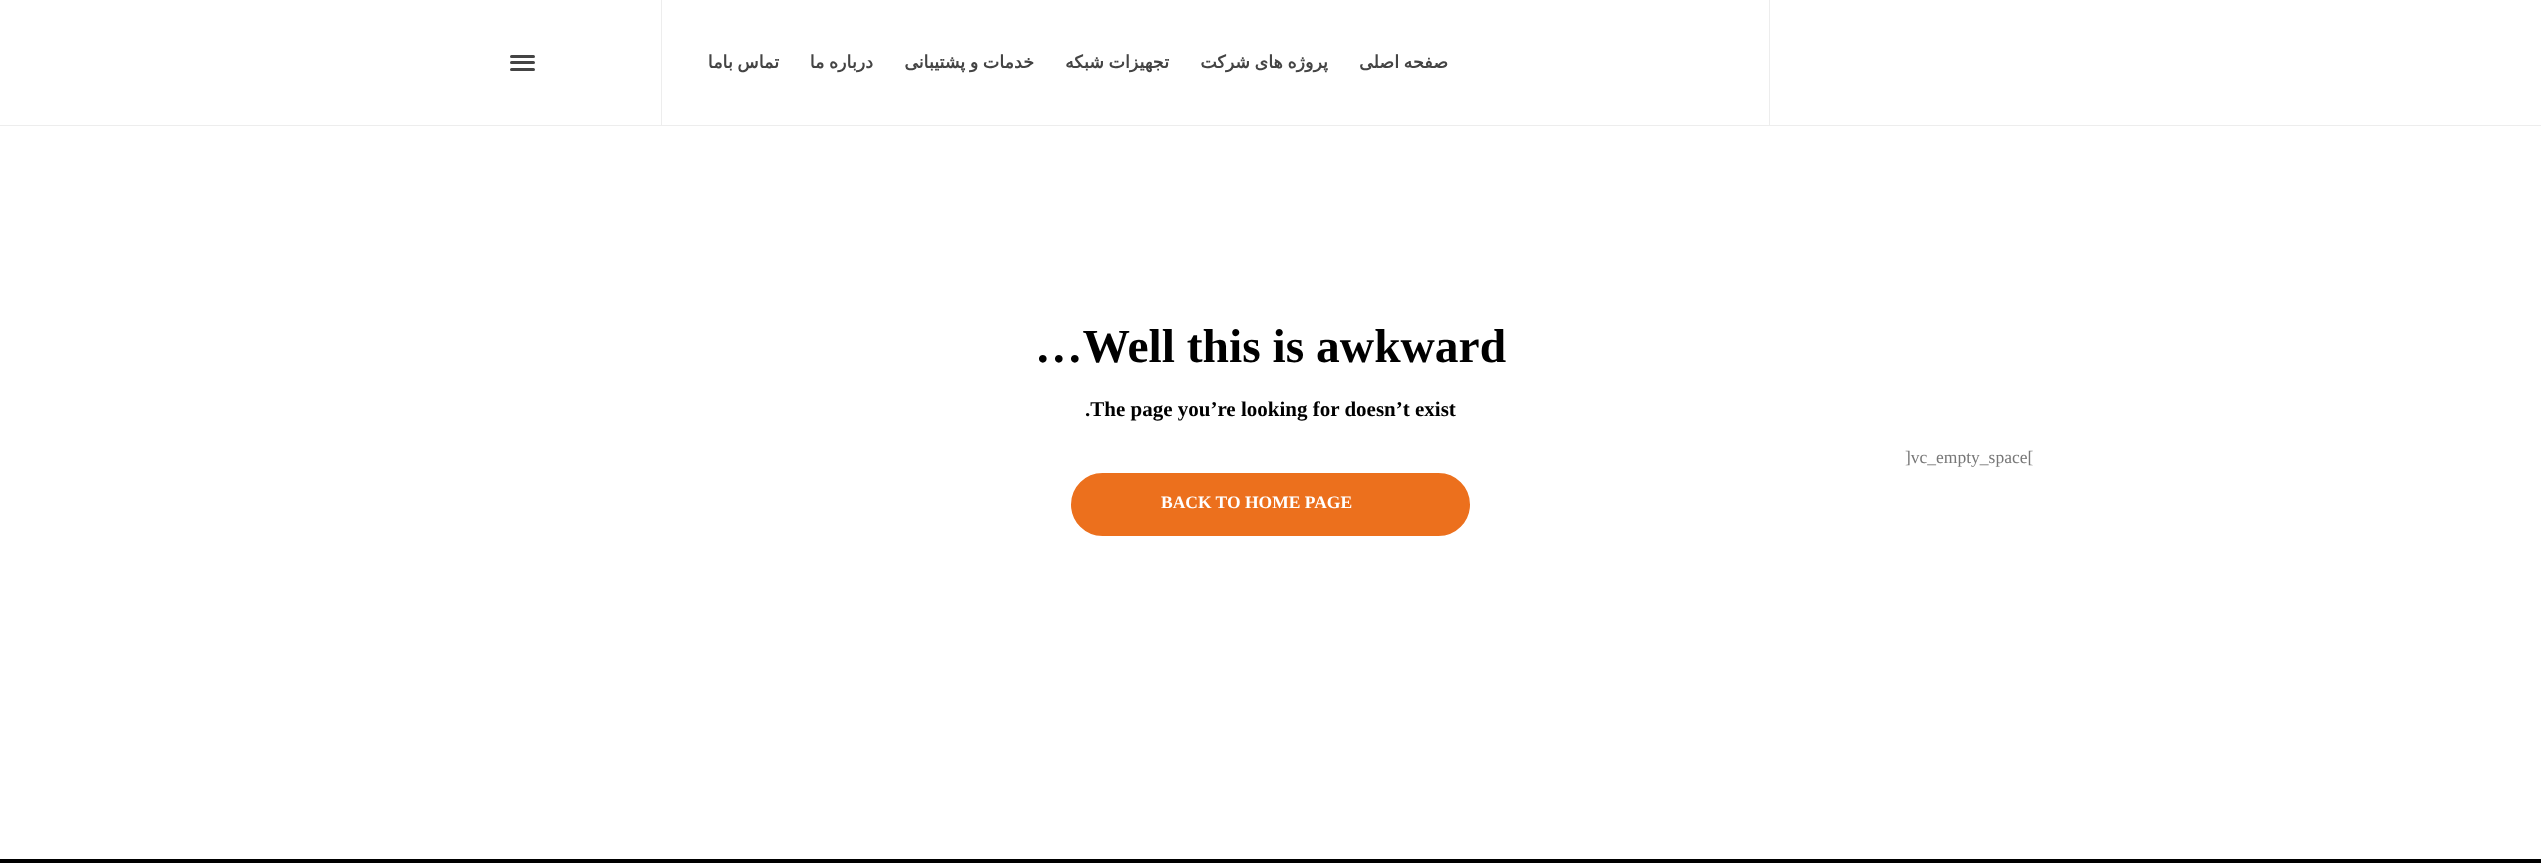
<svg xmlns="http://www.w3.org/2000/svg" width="2541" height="863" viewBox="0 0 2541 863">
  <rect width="100%" height="100%" fill="#fff"/>
  <rect x="510" y="55" width="25" height="3" rx="1.5" fill="#444"/>
  <rect x="510" y="61" width="25" height="3" rx="1.5" fill="#444"/>
  <rect x="510" y="68" width="25" height="3" rx="1.5" fill="#444"/>
  <path d="M661 0h1v125H661z" fill="#ededed"/>
  <path d="M1769 0h1v125H1769z" fill="#ededed"/>
  <path d="M0 125h2541v1H0z" fill="#ededed"/>
  <rect x="1072.5" y="474.5" width="396" height="60" rx="30" fill="#ec701d" stroke="#ec701d" stroke-width="3"/>
  <path d="M0 859h2541v4H0z" fill="#000"/>
  <g font-family="DejaVu Sans" font-size="17.5" font-weight="bold" direction="rtl" fill="#444">
    <text x="779" y="68" word-spacing="-1">تماس باما</text>
    <text x="873" y="68" word-spacing="-1">درباره ما</text>
    <text x="1034" y="68" word-spacing="-1">خدمات و پشتیبانی</text>
    <text x="1169" y="68" word-spacing="-1">تجهیزات شبکه</text>
    <text x="1328" y="68" word-spacing="-1">پروژه های شرکت</text>
    <text x="1448" y="68" word-spacing="-1">صفحه اصلی</text>
  </g>
  <text x="1035" y="362" font-family="Liberation Serif" font-size="47.5" font-weight="bold" fill="#000">…Well this is awkward</text>
  <text x="1085" y="416" font-family="Liberation Serif" font-size="21" font-weight="bold" fill="#000">.The page you’re looking for doesn’t exist</text>
  <text x="1905" y="463" font-family="Liberation Serif" font-size="17.5" fill="#777">]vc_empty_space[</text>
  <text x="1161" y="508" font-family="Liberation Serif" font-size="17.5" font-weight="bold" fill="#fff">BACK TO HOME PAGE</text>
</svg>
